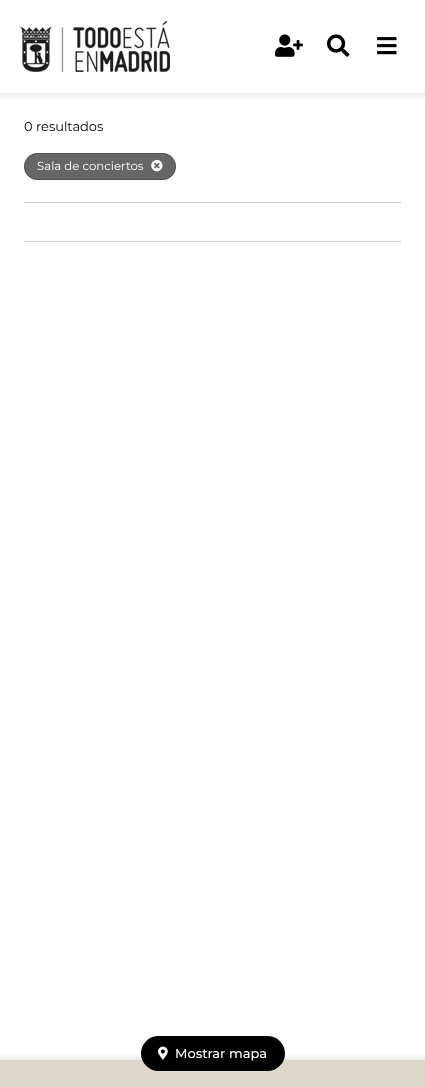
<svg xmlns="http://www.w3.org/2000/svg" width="425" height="1087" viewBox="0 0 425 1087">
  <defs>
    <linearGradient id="g1" gradientUnits="userSpaceOnUse" x1="213" y1="101" x2="213" y2="93"><stop offset="0" stop-color="#fff"/><stop offset="1" stop-color="#ededed"/></linearGradient>
    <linearGradient id="g2" gradientUnits="userSpaceOnUse" x1="213" y1="1052" x2="213" y2="1060"><stop offset="0" stop-color="#fff"/><stop offset="1" stop-color="#ededed"/></linearGradient>
  </defs>
  <rect width="100%" height="100%" fill="#fff"/>
  <image x="20" y="21" width="150" height="51" href="img/1.png"/>
  <image x="275" y="34" width="28" height="23" href="img/2.png"/>
  <image x="327" y="34" width="23" height="23" href="img/3.png"/>
  <image x="377" y="37" width="20" height="18" href="img/4.png"/>
  <path d="M0 93h425v7H0z" fill="url(#g1)"/>
  <path d="M24 241h377v1H24z" fill="#ccc"/>
  <rect x="24" y="153" width="152" height="27" rx="13.5" fill="#666"/>
  <rect x="24.5" y="153.5" width="151" height="26" rx="13" fill="none" stroke="#00000033"/>
  <image x="151" y="159" width="12" height="13" href="img/5.png"/>
  <path d="M24 202h377v1H24z" fill="#ccc"/>
  <path d="M0 1053h425v7H0z" fill="url(#g2)"/>
  <path d="M0 1060h425v27H0z" fill="#ded7cc"/>
  <rect x="141" y="1036" width="144" height="35" rx="17.5" fill="#000"/>
  <image x="158" y="1046" width="10" height="14" href="img/6.png"/>
  <text x="24" y="131" font-family="Montserrat" font-size="13" fill="#000">0 resultados</text>
  <text x="37" y="170" font-family="Montserrat" font-size="11.75" fill="#fff">Sala de conciertos</text>
  <text x="175" y="1058" font-family="Montserrat" font-size="13" font-weight="500" fill="#fff">Mostrar mapa</text>
</svg>
